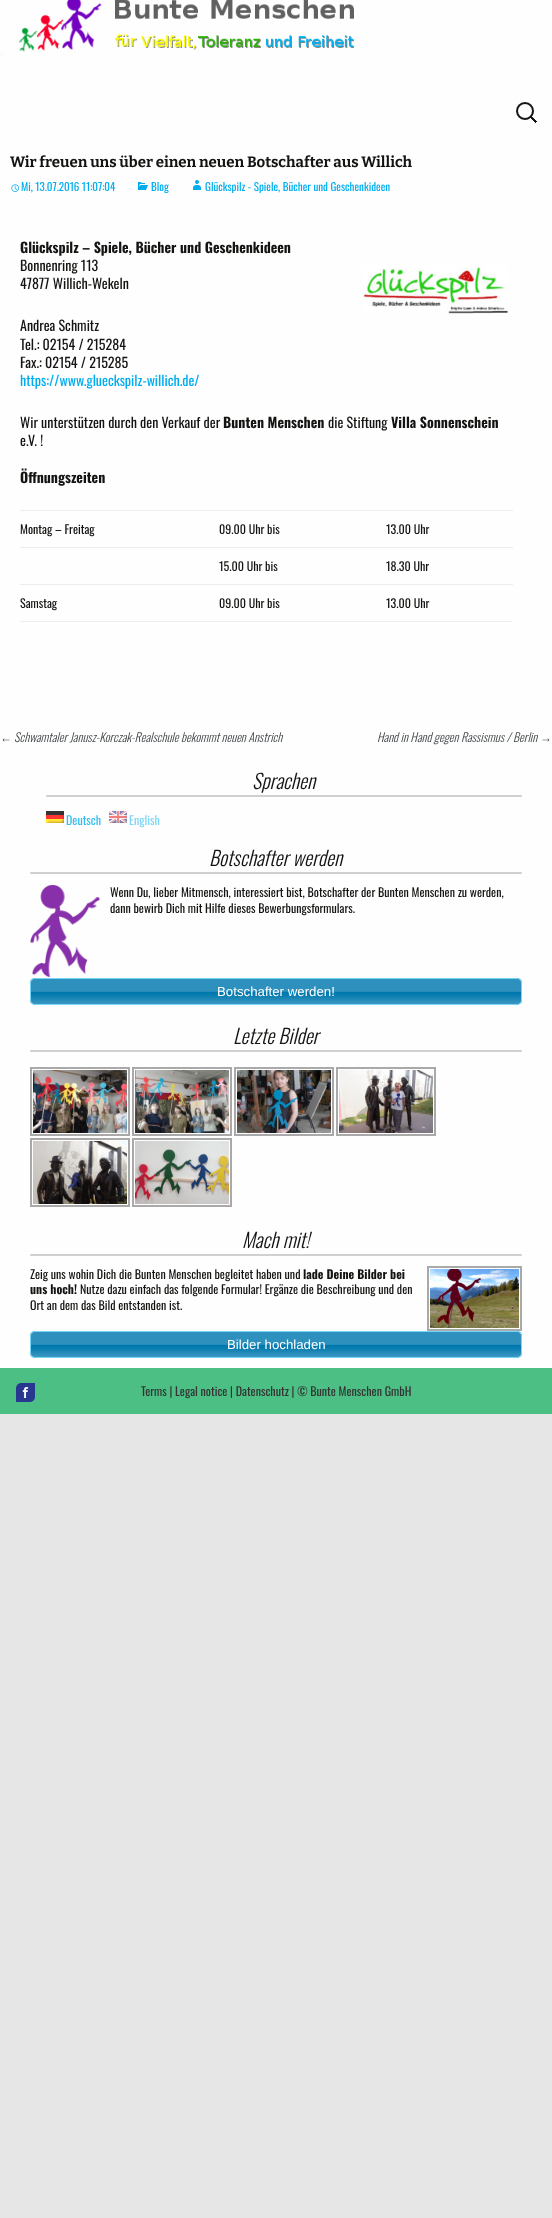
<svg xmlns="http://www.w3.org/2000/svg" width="552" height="2218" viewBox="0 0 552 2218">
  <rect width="100%" height="100%" fill="#e6e6e6"/>
  <path d="M0 0h552v1368H0z" fill="#fefefe"/>
  <image x="1" y="0" width="353" height="56" href="img/1.png"/>
  <image x="516" y="102" width="21" height="21" href="img/2.png"/>
  <image x="11" y="184" width="8" height="8" href="img/3.png"/>
  <image x="138" y="182" width="10" height="8" href="img/4.png"/>
  <image x="193" y="180" width="8" height="10" href="img/5.png"/>
  <image x="363" y="266" width="145" height="48" href="img/6.png"/>
  <path d="M20 621h492v1H20z" fill="#ededed"/>
  <path d="M20 510h493v1H20z" fill="#ededed"/>
  <path d="M20 547h493v1H20z" fill="#ededed"/>
  <path d="M20 584h493v1H20z" fill="#ededed"/>
  <rect x="46" y="795" width="476" height="2" rx="1" fill="#d0d0d0"/>
  <image x="46" y="811" width="18" height="12" href="img/7.png"/>
  <image x="109" y="811" width="18" height="12" href="img/8.png"/>
  <rect x="30" y="872" width="492" height="2" rx="1" fill="#d0d0d0"/>
  <image x="30" y="884" width="70" height="94" href="img/9.png"/>
  <image x="30" y="978" width="492" height="27" href="img/10.png"/>
  <rect x="30.5" y="978.5" width="491" height="26" rx="4.5" fill="none" stroke="#77d5f7"/>
  <rect x="30" y="1050" width="492" height="2" rx="1" fill="#d0d0d0"/>
  <path d="M31 1068h98v67H31z" fill="none" stroke="#a9a9a9" stroke-width="2"/>
  <image x="33" y="1070" width="94" height="63" href="img/11.png"/>
  <path d="M133 1068h98v67H133z" fill="none" stroke="#a9a9a9" stroke-width="2"/>
  <image x="135" y="1070" width="94" height="63" href="img/12.png"/>
  <path d="M235 1068h98v67H235z" fill="none" stroke="#a9a9a9" stroke-width="2"/>
  <image x="237" y="1070" width="94" height="63" href="img/13.png"/>
  <path d="M337 1068h98v67H337z" fill="none" stroke="#a9a9a9" stroke-width="2"/>
  <image x="339" y="1070" width="94" height="63" href="img/14.png"/>
  <path d="M31 1139h98v67H31z" fill="none" stroke="#a9a9a9" stroke-width="2"/>
  <image x="33" y="1141" width="94" height="63" href="img/15.png"/>
  <path d="M133 1139h98v67H133z" fill="none" stroke="#a9a9a9" stroke-width="2"/>
  <image x="135" y="1141" width="94" height="63" href="img/16.png"/>
  <rect x="30" y="1254" width="492" height="2" rx="1" fill="#d0d0d0"/>
  <path d="M428 1267h93v63H428z" fill="none" stroke="#a9a9a9" stroke-width="2"/>
  <image x="430" y="1269" width="89" height="59" href="img/17.png"/>
  <image x="30" y="1331" width="492" height="27" href="img/10.png"/>
  <rect x="30.5" y="1331.5" width="491" height="26" rx="4.5" fill="none" stroke="#77d5f7"/>
  <path d="M0 1368h552v46H0z" fill="#4cc084"/>
  <image x="16" y="1383" width="19" height="19" href="img/18.png"/>
  <text x="10" y="167" font-family="Bitter" font-size="15" font-weight="bold" fill="#141412">Wir freuen uns über einen neuen Botschafter aus Willich</text>
  <g font-family="Oswald" font-size="11" fill="#00aeef">
    <text x="21" y="191">Mi, 13.07.2016 11:07:04</text>
    <text x="151" y="191">Blog</text>
    <text x="205" y="191">Glückspilz - Spiele, Bücher und Geschenkideen</text>
  </g>
  <text x="20" y="253" font-family="Oswald" font-size="14" font-weight="bold" fill="#141412">Glückspilz – Spiele, Bücher und Geschenkideen</text>
  <g font-family="Oswald" font-size="14" fill="#141412">
    <text x="20" y="271">Bonnenring 113</text>
    <text x="20" y="289">47877 Willich-Wekeln</text>
    <text x="20" y="331">Andrea Schmitz</text>
    <text x="20" y="350">Tel.: 02154 / 215284</text>
    <text x="20" y="368">Fax.: 02154 / 215285</text>
  </g>
  <text x="20" y="386" font-family="Oswald" font-size="14" fill="#00aeef">https://www.glueckspilz-willich.de/</text>
  <text x="20" y="428" font-family="Oswald" font-size="14" fill="#141412">Wir unterstützen durch den Verkauf der</text>
  <text x="223" y="428" font-family="Oswald" font-size="14" font-weight="bold" fill="#141412">Bunten Menschen</text>
  <text x="328" y="428" font-family="Oswald" font-size="14" fill="#141412">die Stiftung</text>
  <text x="391" y="428" font-family="Oswald" font-size="14" font-weight="bold" fill="#141412">Villa Sonnenschein</text>
  <text x="20" y="446" font-family="Oswald" font-size="14" fill="#141412">e.V. !</text>
  <text x="20" y="483" font-family="Oswald" font-size="14" font-weight="bold" fill="#141412">Öffnungszeiten</text>
  <g font-family="Oswald" font-size="12" fill="#141412">
    <text x="20" y="534">Montag – Freitag</text>
    <text x="219" y="534">09.00 Uhr bis</text>
    <text x="386" y="534">13.00 Uhr</text>
    <text x="219" y="571">15.00 Uhr bis</text>
    <text x="386" y="571">18.30 Uhr</text>
    <text x="20" y="608">Samstag</text>
    <text x="219" y="608">09.00 Uhr bis</text>
    <text x="386" y="608">13.00 Uhr</text>
  </g>
  <text x="0" y="742" font-family="Liberation Sans" font-size="12" font-style="italic" fill="#43484a">←</text>
  <g font-family="Oswald" font-size="12" font-weight="300" font-style="italic" fill="#43484a">
    <text x="14" y="742">Schwamtaler Janusz-Korczak-Realschule bekommt neuen Anstrich</text>
    <text x="377" y="742">Hand in Hand gegen Rassismus / Berlin</text>
  </g>
  <text x="540" y="742" font-family="Liberation Sans" font-size="12" font-style="italic" fill="#43484a">→</text>
  <text x="252" y="789" font-family="Oswald" font-size="20" font-weight="300" font-style="italic" fill="#141412">Sprachen</text>
  <text x="66" y="825" font-family="Oswald" font-size="12" fill="#33bef2">Deutsch</text>
  <text x="129" y="825" font-family="Oswald" font-size="12" fill="#7fd6f7">English</text>
  <text x="209" y="866" font-family="Oswald" font-size="20" font-weight="300" font-style="italic" fill="#141412">Botschafter werden</text>
  <g font-family="Oswald" font-size="12" fill="#141412">
    <text x="110" y="897">Wenn Du, lieber Mitmensch, interessiert bist, Botschafter der Bunten Menschen zu werden,</text>
    <text x="110" y="913">dann bewirb Dich mit Hilfe dieses Bewerbungsformulars.</text>
  </g>
  <text x="217" y="996" font-family="Liberation Sans" font-size="13.25" fill="#fff">Botschafter werden!</text>
  <g font-family="Oswald" font-size="20" font-weight="300" font-style="italic" fill="#141412">
    <text x="233" y="1044">Letzte Bilder</text>
    <text x="242" y="1248">Mach mit!</text>
  </g>
  <text x="30" y="1279" font-family="Oswald" font-size="12" fill="#141412">Zeig uns wohin Dich die Bunten Menschen begleitet haben und</text>
  <g font-family="Oswald" font-size="12" font-weight="bold" fill="#141412">
    <text x="303" y="1279">lade Deine Bilder bei</text>
    <text x="30" y="1294">uns hoch!</text>
  </g>
  <g font-family="Oswald" font-size="12" fill="#141412">
    <text x="80" y="1294">Nutze dazu einfach das folgende Formular! Ergänze die Beschreibung und den</text>
    <text x="30" y="1310">Ort an dem das Bild entstanden ist.</text>
  </g>
  <text x="227" y="1349" font-family="Liberation Sans" font-size="13.25" fill="#fff">Bilder hochladen</text>
  <text x="141" y="1396" font-family="Oswald" font-size="12" fill="#333">Terms | Legal notice | Datenschutz | © Bunte Menschen GmbH</text>
</svg>
